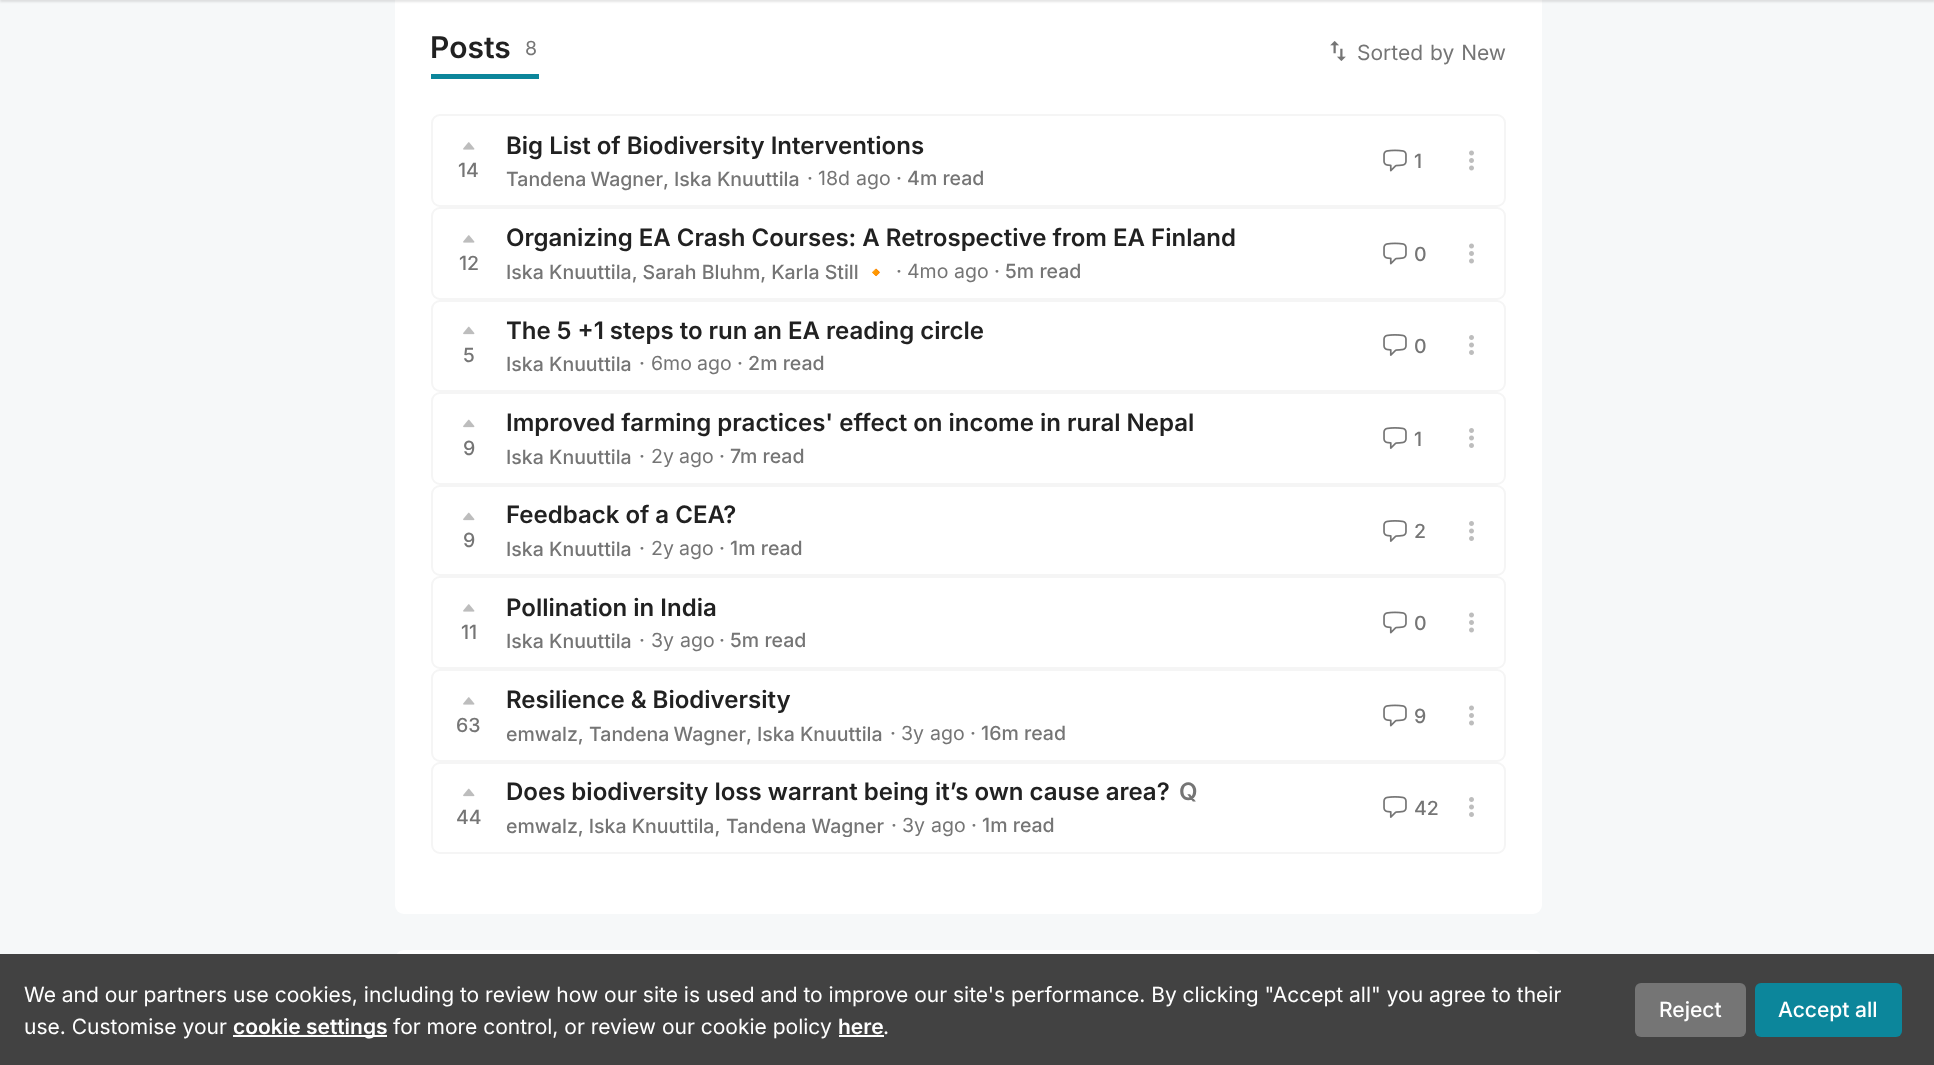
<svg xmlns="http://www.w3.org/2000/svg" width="1934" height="1065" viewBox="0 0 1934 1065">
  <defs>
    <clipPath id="clip1"><path d="M507 813h377v24H507z"/></clipPath>
  </defs>
  <rect width="100%" height="100%" fill="#f6f8f9"/>
  <rect x="395" y="-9" width="1147" height="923" rx="9" fill="#fff"/>
  <path d="M0 -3h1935v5H0z" fill="#0000000d" filter="blur(1px)"/>
  <path d="M0 -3h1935v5H0z" fill="#0000000d" filter="blur(1px)"/>
  <path d="M431 74h108v5H431z" fill="#0c869b"/>
  <image x="1330" y="41" width="16" height="20" href="img/1.png"/>
  <rect x="432" y="115" width="1073" height="91" rx="8" fill="none" stroke="#f5f5f5" stroke-width="2"/>
  <image x="1383" y="149" width="24" height="23" href="img/2.png"/>
  <image x="1469" y="150" width="5" height="21" href="img/3.png"/>
  <image x="463" y="142" width="12" height="8" href="img/4.png"/>
  <rect x="432" y="208" width="1073" height="91" rx="8" fill="none" stroke="#f5f5f5" stroke-width="2"/>
  <image x="463" y="235" width="12" height="8" href="img/4.png"/>
  <image x="1383" y="242" width="24" height="23" href="img/2.png"/>
  <image x="1469" y="243" width="5" height="21" href="img/3.png"/>
  <rect x="432" y="301" width="1073" height="90" rx="8" fill="none" stroke="#f5f5f5" stroke-width="2"/>
  <image x="463" y="326" width="12" height="9" href="img/5.png"/>
  <image x="1383" y="334" width="24" height="22" href="img/6.png"/>
  <image x="1469" y="335" width="5" height="20" href="img/7.png"/>
  <rect x="432" y="393" width="1073" height="91" rx="8" fill="none" stroke="#f5f5f5" stroke-width="2"/>
  <image x="1383" y="427" width="24" height="22" href="img/6.png"/>
  <image x="1469" y="428" width="5" height="20" href="img/7.png"/>
  <image x="463" y="419" width="12" height="9" href="img/5.png"/>
  <rect x="432" y="486" width="1073" height="89" rx="8" fill="none" stroke="#f5f5f5" stroke-width="2"/>
  <image x="1383" y="520" width="24" height="22" href="img/6.png"/>
  <image x="1469" y="521" width="5" height="20" href="img/7.png"/>
  <image x="463" y="512" width="12" height="9" href="img/5.png"/>
  <rect x="432" y="577" width="1073" height="91" rx="8" fill="none" stroke="#f5f5f5" stroke-width="2"/>
  <image x="463" y="604" width="12" height="8" href="img/4.png"/>
  <image x="1383" y="611" width="24" height="23" href="img/2.png"/>
  <image x="1469" y="612" width="5" height="21" href="img/3.png"/>
  <rect x="432" y="670" width="1073" height="91" rx="8" fill="none" stroke="#f5f5f5" stroke-width="2"/>
  <image x="463" y="697" width="12" height="8" href="img/4.png"/>
  <image x="1383" y="704" width="24" height="23" href="img/2.png"/>
  <image x="1469" y="705" width="5" height="21" href="img/3.png"/>
  <rect x="432" y="763" width="1073" height="90" rx="8" fill="none" stroke="#f5f5f5" stroke-width="2"/>
  <image x="1383" y="796" width="24" height="22" href="img/6.png"/>
  <image x="1469" y="797" width="5" height="20" href="img/7.png"/>
  <image x="463" y="788" width="12" height="9" href="img/5.png"/>
  <rect x="395" y="950" width="1147" height="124" rx="9" fill="#fff"/>
  <path d="M0 954h1934v111H0z" fill="#424242"/>
  <path d="M233 1035h154v2H233z" fill="#fff"/>
  <path d="M839 1035h45v2H839z" fill="#fff"/>
  <rect x="1635" y="983" width="111" height="54" rx="6" fill="#757575"/>
  <rect x="1755" y="983" width="147" height="54" rx="6" fill="#0c869b"/>
  <text x="430" y="58" font-family="Inter" font-size="30" font-weight="600" fill="#212121">Posts</text>
  <text x="525" y="55" font-family="Inter" font-size="19.5" fill="#757575">8</text>
  <text x="1357" y="60" word-spacing="1" font-family="Inter" font-size="21" fill="#757575">Sorted by New</text>
  <text x="506" y="154" font-family="Inter" font-size="24" font-weight="600" fill="#212121">Big List of Biodiversity Interventions</text>
  <g font-family="Inter" font-size="19.5" font-weight="500" fill="#757575">
    <text x="506" y="186" word-spacing="-1">Tandena Wagner</text>
    <text x="663" y="186">, Iska Knuuttila</text>
    <text x="807" y="185">·</text>
  </g>
  <g font-family="Inter" font-size="19.5" fill="#757575">
    <text x="818" y="185">18d</text>
    <text x="856" y="185">ago</text>
  </g>
  <g font-family="Inter" font-size="19.5" font-weight="500" fill="#757575">
    <text x="896" y="185">· 4m read</text>
    <text x="1414" y="168">1</text>
    <text x="458" y="177">14</text>
    <text x="459" y="270">12</text>
  </g>
  <text x="506" y="246" font-family="Inter" font-size="24" font-weight="600" fill="#212121">Organizing EA Crash Courses: A Retrospective from EA Finland</text>
  <text x="506" y="279" font-family="Inter" font-size="19.5" font-weight="500" fill="#757575">Iska Knuuttila, Sarah Bluhm, Karla Still</text>
  <text x="864" y="279" font-family="Noto Color Emoji" font-size="19.5" fill="#757575">🔸</text>
  <text x="896" y="278" font-family="Inter" font-size="19.5" font-weight="500" fill="#757575">·</text>
  <g font-family="Inter" font-size="19.5" fill="#757575">
    <text x="907" y="278">4mo</text>
    <text x="954" y="278">ago</text>
  </g>
  <g font-family="Inter" font-size="19.5" font-weight="500" fill="#757575">
    <text x="994" y="278">· 5m read</text>
    <text x="1414" y="261">0</text>
    <text x="463" y="362">5</text>
  </g>
  <text x="506" y="339" font-family="Inter" font-size="24" font-weight="600" fill="#212121">The 5 +1 steps to run an EA reading circle</text>
  <g font-family="Inter" font-size="19.5" font-weight="500" fill="#757575">
    <text x="506" y="371">Iska Knuuttila</text>
    <text x="639" y="370">·</text>
  </g>
  <g font-family="Inter" font-size="19.5" fill="#757575">
    <text x="651" y="370">6mo</text>
    <text x="697" y="370">ago</text>
  </g>
  <g font-family="Inter" font-size="19.5" font-weight="500" fill="#757575">
    <text x="737" y="370">· 2m read</text>
    <text x="1414" y="353">0</text>
  </g>
  <text x="506" y="431" font-family="Inter" font-size="24" font-weight="600" fill="#212121">Improved farming practices' effect on income in rural Nepal</text>
  <g font-family="Inter" font-size="19.5" font-weight="500" fill="#757575">
    <text x="506" y="464">Iska Knuuttila</text>
    <text x="639" y="463">·</text>
  </g>
  <g font-family="Inter" font-size="19.5" fill="#757575">
    <text x="651" y="463">2y</text>
    <text x="679" y="463">ago</text>
  </g>
  <g font-family="Inter" font-size="19.5" font-weight="500" fill="#757575">
    <text x="719" y="463">· 7</text>
    <text x="740" y="463">m read</text>
    <text x="1414" y="446">1</text>
    <text x="463" y="455">9</text>
  </g>
  <text x="506" y="523" font-family="Inter" font-size="24" font-weight="600" fill="#212121">Feedback of a CEA?</text>
  <g font-family="Inter" font-size="19.5" font-weight="500" fill="#757575">
    <text x="506" y="556">Iska Knuuttila</text>
    <text x="639" y="555">·</text>
  </g>
  <g font-family="Inter" font-size="19.5" fill="#757575">
    <text x="651" y="555">2y</text>
    <text x="679" y="555">ago</text>
  </g>
  <g font-family="Inter" font-size="19.5" font-weight="500" fill="#757575">
    <text x="719" y="555">· 1m read</text>
    <text x="1414" y="538">2</text>
    <text x="463" y="547">9</text>
    <text x="461" y="639">11</text>
  </g>
  <text x="506" y="616" font-family="Inter" font-size="24" font-weight="600" fill="#212121">Pollination in India</text>
  <g font-family="Inter" font-size="19.5" font-weight="500" fill="#757575">
    <text x="506" y="648">Iska Knuuttila</text>
    <text x="639" y="647">·</text>
  </g>
  <g font-family="Inter" font-size="19.5" fill="#757575">
    <text x="651" y="647">3y</text>
    <text x="680" y="647">ago</text>
  </g>
  <g font-family="Inter" font-size="19.5" font-weight="500" fill="#757575">
    <text x="719" y="647">· 5m read</text>
    <text x="1414" y="630">0</text>
    <text x="456" y="732">63</text>
  </g>
  <text x="506" y="708" font-family="Inter" font-size="24" font-weight="600" fill="#212121">Resilience &amp; Biodiversity</text>
  <g font-family="Inter" font-size="19.5" font-weight="500" fill="#757575">
    <text x="506" y="741">emwalz,</text>
    <text x="589" y="741" word-spacing="-1">Tandena Wagner</text>
    <text x="746" y="741">, Iska Knuuttila</text>
    <text x="890" y="740">·</text>
  </g>
  <g font-family="Inter" font-size="19.5" fill="#757575">
    <text x="901" y="740">3y</text>
    <text x="930" y="740">ago</text>
  </g>
  <g font-family="Inter" font-size="19.5" font-weight="500" fill="#757575">
    <text x="970" y="740">· 16m read</text>
    <text x="1414" y="723">9</text>
  </g>
  <text x="506" y="800" font-family="Inter" font-size="24" font-weight="600" fill="#212121">Does biodiversity loss warrant being it’s own cause area?</text>
  <text x="1179" y="800" font-family="Inter" font-size="24" font-weight="600" fill="#757575">Q</text>
  <text x="506" y="833" font-family="Inter" font-size="19.5" font-weight="500" fill="#757575">emwalz, Iska Knuuttila,</text>
  <g clip-path="url(#clip1)">
    <text x="726" y="833" font-family="Inter" font-size="19.5" font-weight="500" fill="#757575">Tandena Wagner</text>
  </g>
  <text x="891" y="832" font-family="Inter" font-size="19.5" font-weight="500" fill="#757575">·</text>
  <g font-family="Inter" font-size="19.5" fill="#757575">
    <text x="902" y="832">3y</text>
    <text x="931" y="832">ago</text>
  </g>
  <g font-family="Inter" font-size="19.5" font-weight="500" fill="#757575">
    <text x="971" y="832">· 1m read</text>
    <text x="1414" y="815">42</text>
    <text x="456" y="824">44</text>
  </g>
  <g font-family="Inter" font-size="21" fill="#fff">
    <text x="24" y="1002">We and our partners use cookies, including to review how our site is used and to improve our site's performance. By clicking "Accept all" you agree to their</text>
    <text x="24" y="1034">use. Customise your</text>
  </g>
  <text x="233" y="1034" font-family="Inter" font-size="21" font-weight="600" fill="#fff">cookie settings</text>
  <text x="393" y="1034" font-family="Inter" font-size="21" fill="#fff">for more control, or review our cookie policy</text>
  <text x="838" y="1034" font-family="Inter" font-size="21" font-weight="600" fill="#fff">here</text>
  <text x="883" y="1034" font-family="Inter" font-size="21" fill="#fff">.</text>
  <g font-family="Inter" font-size="21" font-weight="500" fill="#fff">
    <text x="1659" y="1017">Reject</text>
    <text x="1778" y="1017">Accept all</text>
  </g>
</svg>
